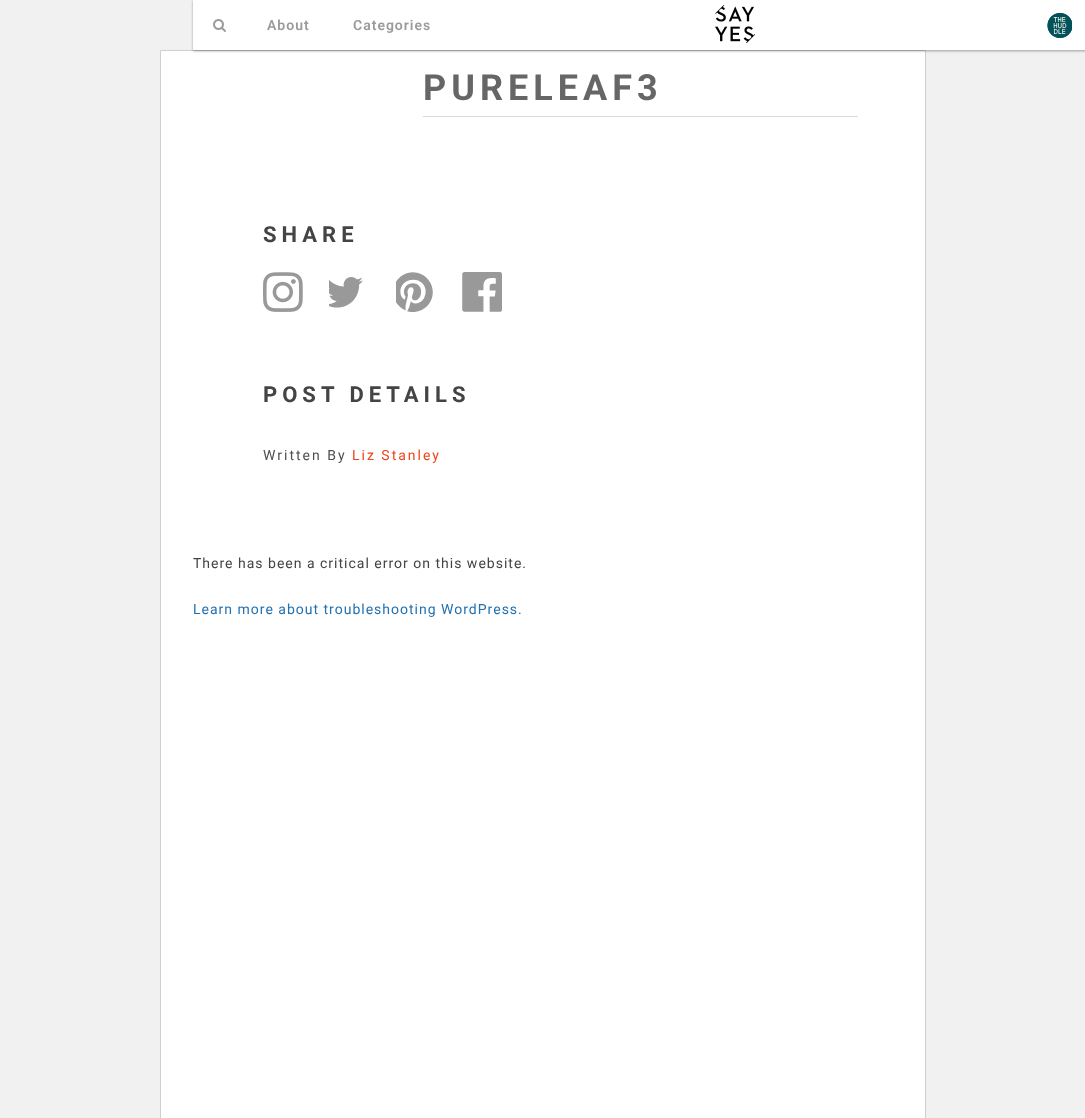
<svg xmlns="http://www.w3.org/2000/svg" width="1085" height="1118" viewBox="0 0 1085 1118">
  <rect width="100%" height="100%" fill="#f1f1f1"/>
  <path d="M160.5 50.5h765v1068H160.5z" fill="#fff" stroke="#ccd0d4"/>
  <path d="M193 1h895v50H193z" fill="#0000003d" filter="blur(1px)"/>
  <path d="M193 1h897v50H193z" fill="#0000001f" filter="blur(1.5px)"/>
  <path d="M193 0h892v50H193z" fill="#fff"/>
  <image x="213" y="19" width="13" height="13" href="img/1.png"/>
  <image x="715" y="5" width="40" height="38" href="img/2.png"/>
  <image x="1047" y="13" width="25" height="25" href="img/3.png"/>
  <image x="1047" y="13" width="25" height="25" href="img/4.png"/>
  <path d="M423 116h435v1H423z" fill="#dadada"/>
  <image x="263" y="272" width="40" height="40" href="img/5.png"/>
  <image x="329" y="277" width="34" height="31" href="img/6.png"/>
  <image x="396" y="272" width="37" height="40" href="img/7.png"/>
  <image x="462" y="272" width="40" height="40" href="img/8.png"/>
  <g font-family="Roboto" font-size="14" font-weight="600" letter-spacing="1" fill="#9b9b9b">
    <text x="267" y="30">About</text>
    <text x="353" y="30">Categories</text>
  </g>
  <text x="423" y="100" font-family="Roboto" font-size="36" font-weight="bold" letter-spacing="5" fill="#666">PURELEAF3</text>
  <g font-family="Roboto" font-size="22" font-weight="bold" letter-spacing="5" fill="#444">
    <text x="263" y="242">SHARE</text>
    <text x="263" y="402">POST DETAILS</text>
  </g>
  <text x="263" y="460" font-family="Roboto" font-size="14" letter-spacing="2" fill="#504f4f">Written By</text>
  <text x="352" y="460" font-family="Roboto" font-size="14" letter-spacing="2" fill="#f0451c">Liz Stanley</text>
  <text x="193" y="568" font-family="Roboto" font-size="14" letter-spacing="1" fill="#444">There has been a critical error on this website.</text>
  <text x="193" y="614" font-family="Roboto" font-size="14" letter-spacing="1" fill="#2271b1">Learn more about troubleshooting WordPress.</text>
</svg>
